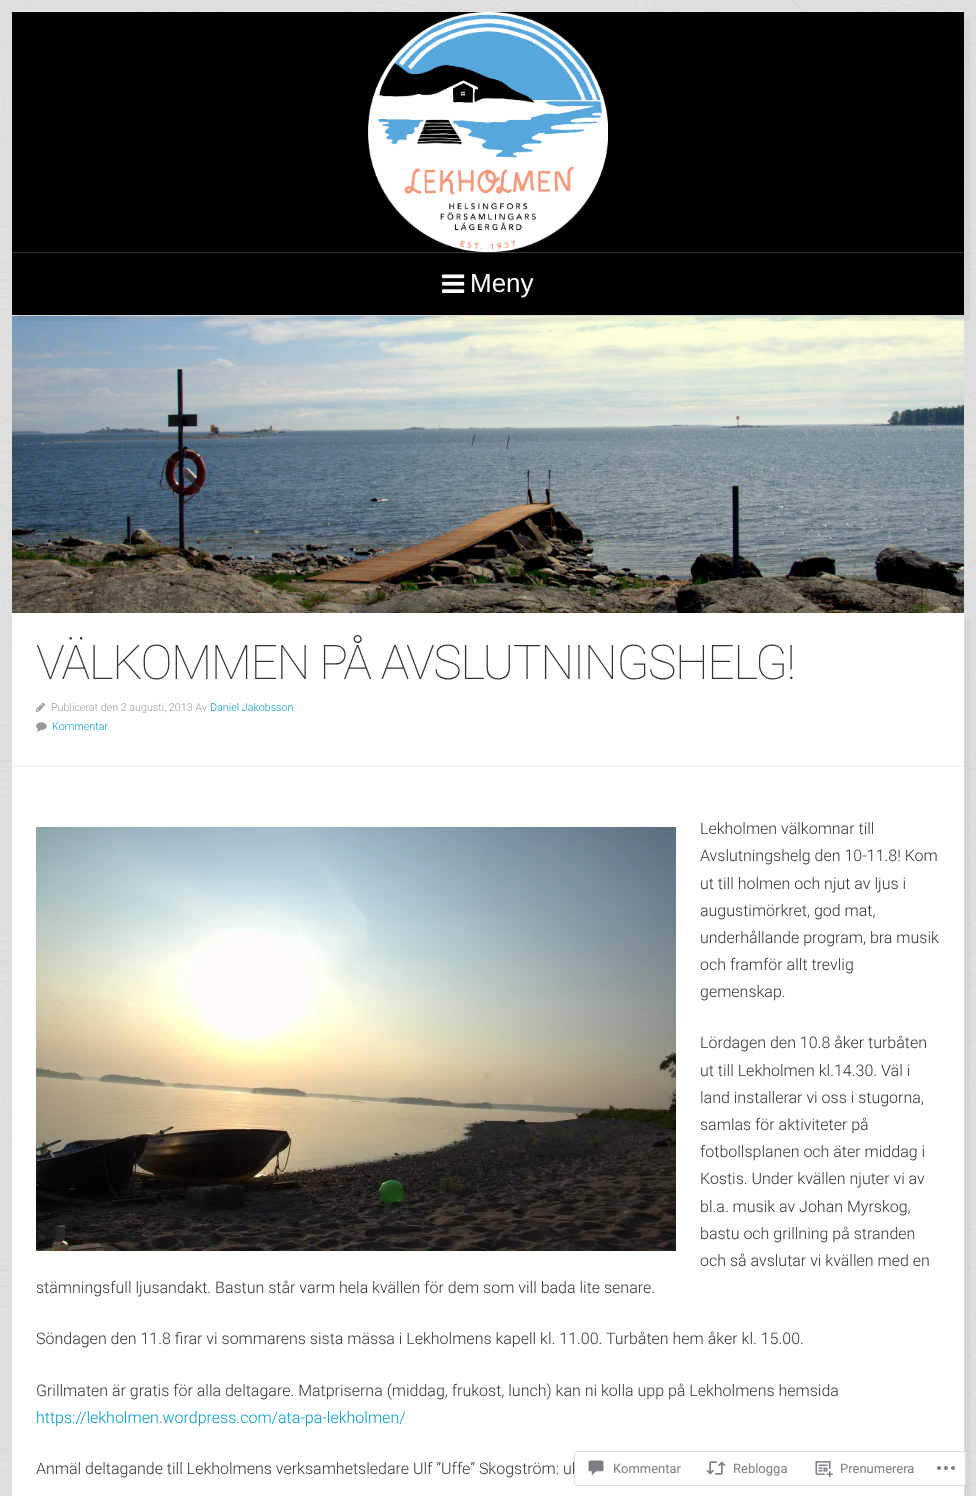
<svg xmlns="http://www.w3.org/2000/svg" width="976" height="1496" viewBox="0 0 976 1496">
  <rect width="100%" height="100%" fill="#fff"/>
  <image x="0" y="0" width="976" height="1496" href="img/1.png"/>
  <image x="12" y="316" width="952" height="297" href="img/4.png"/>
  <path d="M18 315V321H970V18H964V315Z" fill="#0000000a"/>
  <path d="M12 12h952v240H12z" fill="#000"/>
  <image x="368" y="12" width="240" height="240" href="img/2.png"/>
  <path d="M12 253h952v62H12z" fill="#000"/>
  <path d="M12 252h952v1H12z" fill="#333"/>
  <image x="442" y="274" width="23" height="19" href="img/3.png"/>
  <path d="M18 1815V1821H970V619H964V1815Z" fill="#0000000a"/>
  <path d="M12 613h952v883H12z" fill="#fff"/>
  <path d="M12 766h952v1H12z" fill="#ebebeb"/>
  <image x="36" y="702" width="9" height="10" href="img/5.png"/>
  <image x="36" y="722" width="11" height="10" href="img/6.png"/>
  <image x="36" y="827" width="640" height="424" href="img/7.png"/>
  <text x="470" y="292" font-family="Liberation Sans" font-size="26" fill="#fff">Meny</text>
  <text x="36" y="679" font-family="Roboto" font-size="48" font-weight="100" letter-spacing="-1.4" fill="#333">VÄLKOMMEN PÅ AVSLUTNINGSHELG!</text>
  <text x="51" y="711" font-family="Roboto" font-size="10.75" font-weight="300" fill="#999">Publicerat den 2 augusti, 2013 Av</text>
  <g font-family="Roboto" font-size="10.75" font-weight="300" fill="#09c">
    <text x="210" y="711">Daniel Jakobsson</text>
    <text x="52" y="730">Kommentar</text>
  </g>
  <g font-family="Roboto" font-size="16" font-weight="300" fill="#333">
    <text x="700" y="834">Lekholmen välkomnar till</text>
    <text x="700" y="861">Avslutningshelg den 10-11.8! Kom</text>
    <text x="700" y="889">ut till holmen och njut av ljus i</text>
    <text x="700" y="916">augustimörkret, god mat,</text>
    <text x="700" y="943">underhållande program, bra musik</text>
    <text x="700" y="970">och framför allt trevlig</text>
    <text x="700" y="997">gemenskap.</text>
    <text x="700" y="1048">Lördagen den 10.8 åker turbåten</text>
    <text x="700" y="1076">ut till Lekholmen kl.14.30. Väl i</text>
    <text x="700" y="1103">land installerar vi oss i stugorna,</text>
    <text x="700" y="1130">samlas för aktiviteter på</text>
    <text x="700" y="1157">fotbollsplanen och äter middag i</text>
    <text x="700" y="1184">Kostis. Under kvällen njuter vi av</text>
    <text x="700" y="1212">bl.a. musik av Johan Myrskog,</text>
    <text x="700" y="1239">bastu och grillning på stranden</text>
    <text x="700" y="1266">och så avslutar vi kvällen med en</text>
    <text x="36" y="1293">stämningsfull ljusandakt. Bastun står varm hela kvällen för dem som vill bada lite senare.</text>
    <text x="36" y="1344">Söndagen den 11.8 firar vi sommarens sista mässa i Lekholmens kapell kl. 11.00. Turbåten hem åker kl. 15.00.</text>
    <text x="36" y="1396">Grillmaten är gratis för alla deltagare. Matpriserna (middag, frukost, lunch) kan ni kolla upp på Lekholmens hemsida</text>
  </g>
  <text x="36" y="1423" font-family="Roboto" font-size="16" font-weight="300" fill="#09c">https://lekholmen.wordpress.com/ata-pa-lekholmen/</text>
  <text x="36" y="1474" font-family="Roboto" font-size="16" font-weight="300" fill="#333">Anmäl deltagande till Lekholmens verksamhetsledare Ulf ”Uffe” Skogström: ul</text>
  <rect x="574" y="1451" width="392" height="35" rx="3" fill="#fffffffa"/>
  <rect x="574.5" y="1451.5" width="391" height="34" rx="2.5" fill="none" stroke="#dcdcdefa"/>
  <image x="588" y="1460" width="16" height="16" href="img/8.png"/>
  <text x="613" y="1473" font-family="Roboto" font-size="13" fill="#7b7f84">Kommentar</text>
  <image x="706" y="1461" width="20" height="14" href="img/9.png"/>
  <text x="733" y="1473" font-family="Roboto" font-size="13" fill="#7b7f84">Reblogga</text>
  <image x="815" y="1461" width="18" height="17" href="img/10.png"/>
  <text x="840" y="1473" font-family="Roboto" font-size="13" fill="#7b7f84">Prenumerera</text>
  <image x="937" y="1466" width="18" height="4" href="img/11.png"/>
</svg>
